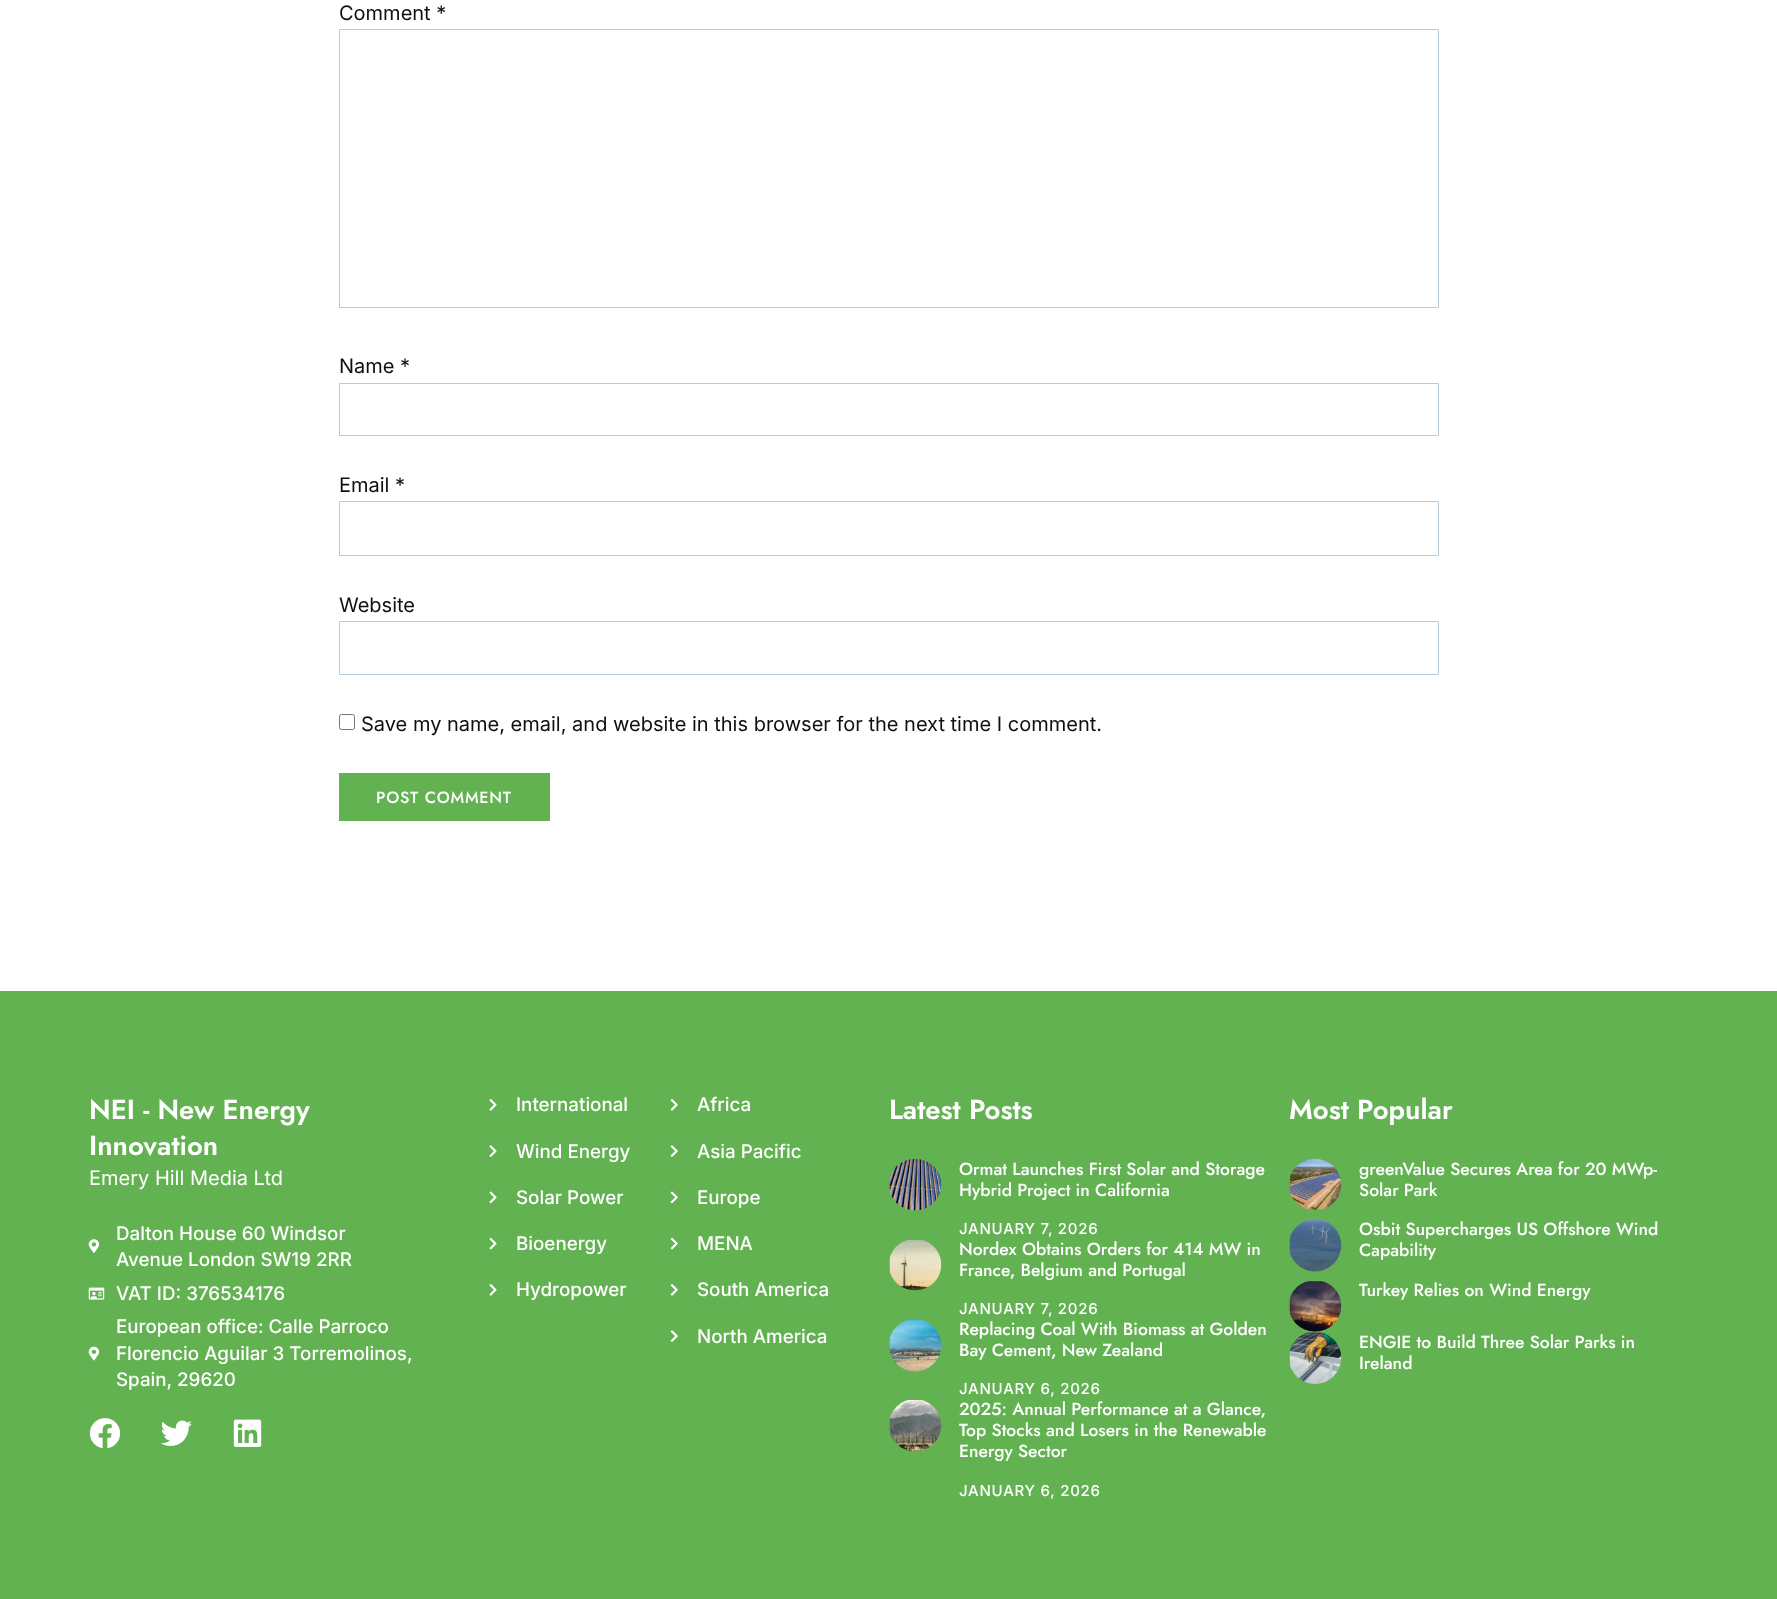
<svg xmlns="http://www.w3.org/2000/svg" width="1777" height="1599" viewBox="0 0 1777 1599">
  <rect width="100%" height="100%" fill="#fff"/>
  <path d="M339.5 29.5h1099v278H339.5z" fill="none" stroke="#b7cad7"/>
  <path d="M339.5 383.5h1099v52H339.5z" fill="none" stroke="#b7cad7"/>
  <path d="M339.5 501.5h1099v54H339.5z" fill="none" stroke="#b7cad7"/>
  <path d="M339.5 621.5h1099v53H339.5z" fill="none" stroke="#b7cad7"/>
  <rect x="339.5" y="714.5" width="15" height="15" rx="2" fill="none" stroke="#767676"/>
  <path d="M339 773h211v48H339z" fill="#62b252"/>
  <path d="M0 991h1777v608H0z" fill="#62b252"/>
  <image x="88" y="1239" width="12" height="14" href="img/1.png"/>
  <image x="88" y="1287" width="17" height="13" href="img/2.png"/>
  <image x="88" y="1346" width="12" height="15" href="img/3.png"/>
  <image x="89" y="1418" width="32" height="31" href="img/4.png"/>
  <image x="160" y="1420" width="32" height="26" href="img/5.png"/>
  <image x="233" y="1419" width="29" height="28" href="img/6.png"/>
  <image x="489" y="1099" width="8" height="12" href="img/7.png"/>
  <image x="489" y="1145" width="8" height="12" href="img/8.png"/>
  <image x="489" y="1191" width="8" height="13" href="img/9.png"/>
  <image x="489" y="1237" width="8" height="13" href="img/10.png"/>
  <image x="489" y="1284" width="8" height="12" href="img/7.png"/>
  <image x="670" y="1099" width="8" height="12" href="img/11.png"/>
  <image x="670" y="1145" width="8" height="12" href="img/12.png"/>
  <image x="670" y="1191" width="8" height="13" href="img/13.png"/>
  <image x="670" y="1237" width="8" height="13" href="img/14.png"/>
  <image x="670" y="1284" width="8" height="12" href="img/11.png"/>
  <image x="670" y="1330" width="8" height="12" href="img/12.png"/>
  <image x="889" y="1159" width="53" height="52" href="img/15.png"/>
  <image x="889" y="1240" width="53" height="51" href="img/16.png"/>
  <image x="889" y="1320" width="53" height="52" href="img/17.png"/>
  <image x="889" y="1400" width="53" height="52" href="img/18.png"/>
  <image x="1289" y="1159" width="53" height="52" href="img/19.png"/>
  <image x="1289" y="1220" width="53" height="52" href="img/20.png"/>
  <image x="1289" y="1281" width="53" height="51" href="img/21.png"/>
  <image x="1289" y="1332" width="53" height="52" href="img/22.png"/>
  <g font-family="Inter" font-size="20" fill="#0e0f10">
    <text x="339" y="20">Comment *</text>
    <text x="339" y="373">Name *</text>
    <text x="339" y="492">Email *</text>
    <text x="339" y="612">Website</text>
    <text x="361" y="731">Save my name, email, and website in this browser for the next time I comment.</text>
  </g>
  <text x="376" y="803" font-family="Jost" font-size="16.25" font-weight="500" letter-spacing="0.75" fill="#fff">POST COMMENT</text>
  <g font-family="Jost" font-size="27.5" font-weight="600" fill="#fff">
    <text x="89" y="1119">NEI - New Energy</text>
    <text x="89" y="1155">Innovation</text>
  </g>
  <text x="89" y="1185" font-family="Inter" font-size="20" fill="#fff">Emery Hill Media Ltd</text>
  <g font-family="Inter" font-size="18.75" font-weight="500" fill="#fff">
    <text x="116" y="1240">Dalton House 60 Windsor</text>
    <text x="116" y="1266">Avenue London SW19 2RR</text>
    <text x="116" y="1300">VAT ID: 376534176</text>
    <text x="116" y="1333">European office: Calle Parroco</text>
    <text x="116" y="1360">Florencio Aguilar 3 Torremolinos,</text>
    <text x="116" y="1386">Spain, 29620</text>
    <text x="516" y="1111">International</text>
    <text x="516" y="1158">Wind Energy</text>
    <text x="516" y="1204">Solar Power</text>
    <text x="516" y="1250">Bioenergy</text>
    <text x="516" y="1296">Hydropower</text>
    <text x="697" y="1111">Africa</text>
    <text x="697" y="1158">Asia Pacific</text>
    <text x="697" y="1204">Europe</text>
    <text x="697" y="1250">MENA</text>
    <text x="697" y="1296">South America</text>
    <text x="697" y="1343">North America</text>
  </g>
  <text x="889" y="1119" font-family="Jost" font-size="27.5" font-weight="600" fill="#fff">Latest Posts</text>
  <g font-family="Jost" font-size="17.5" font-weight="500" fill="#fff">
    <text x="959" y="1175">Ormat Launches First Solar and Storage</text>
    <text x="959" y="1196">Hybrid Project in California</text>
  </g>
  <text x="959" y="1234" font-family="Inter" font-size="15" font-weight="500" letter-spacing="0.75" fill="#fff">JANUARY 7, 2026</text>
  <g font-family="Jost" font-size="17.5" font-weight="500" fill="#fff">
    <text x="959" y="1255">Nordex Obtains Orders for 414 MW in</text>
    <text x="959" y="1276">France, Belgium and Portugal</text>
  </g>
  <text x="959" y="1314" font-family="Inter" font-size="15" font-weight="500" letter-spacing="0.75" fill="#fff">JANUARY 7, 2026</text>
  <g font-family="Jost" font-size="17.5" font-weight="500" fill="#fff">
    <text x="959" y="1335">Replacing Coal With Biomass at Golden</text>
    <text x="959" y="1356">Bay Cement, New Zealand</text>
  </g>
  <text x="959" y="1394" font-family="Inter" font-size="15" font-weight="500" letter-spacing="0.75" fill="#fff">JANUARY 6, 2026</text>
  <g font-family="Jost" font-size="17.5" font-weight="500" fill="#fff">
    <text x="959" y="1415">2025: Annual Performance at a Glance,</text>
    <text x="959" y="1436">Top Stocks and Losers in the Renewable</text>
    <text x="959" y="1457">Energy Sector</text>
  </g>
  <text x="959" y="1496" font-family="Inter" font-size="15" font-weight="500" letter-spacing="0.75" fill="#fff">JANUARY 6, 2026</text>
  <text x="1289" y="1119" font-family="Jost" font-size="27.5" font-weight="600" fill="#fff">Most Popular</text>
  <g font-family="Jost" font-size="17.5" font-weight="500" fill="#fff">
    <text x="1359" y="1175">greenValue Secures Area for 20 MWp-</text>
    <text x="1359" y="1196">Solar Park</text>
    <text x="1359" y="1235">Osbit Supercharges US Offshore Wind</text>
    <text x="1359" y="1256">Capability</text>
    <text x="1359" y="1296">Turkey Relies on Wind Energy</text>
    <text x="1359" y="1348">ENGIE to Build Three Solar Parks in</text>
    <text x="1359" y="1369">Ireland</text>
  </g>
</svg>
